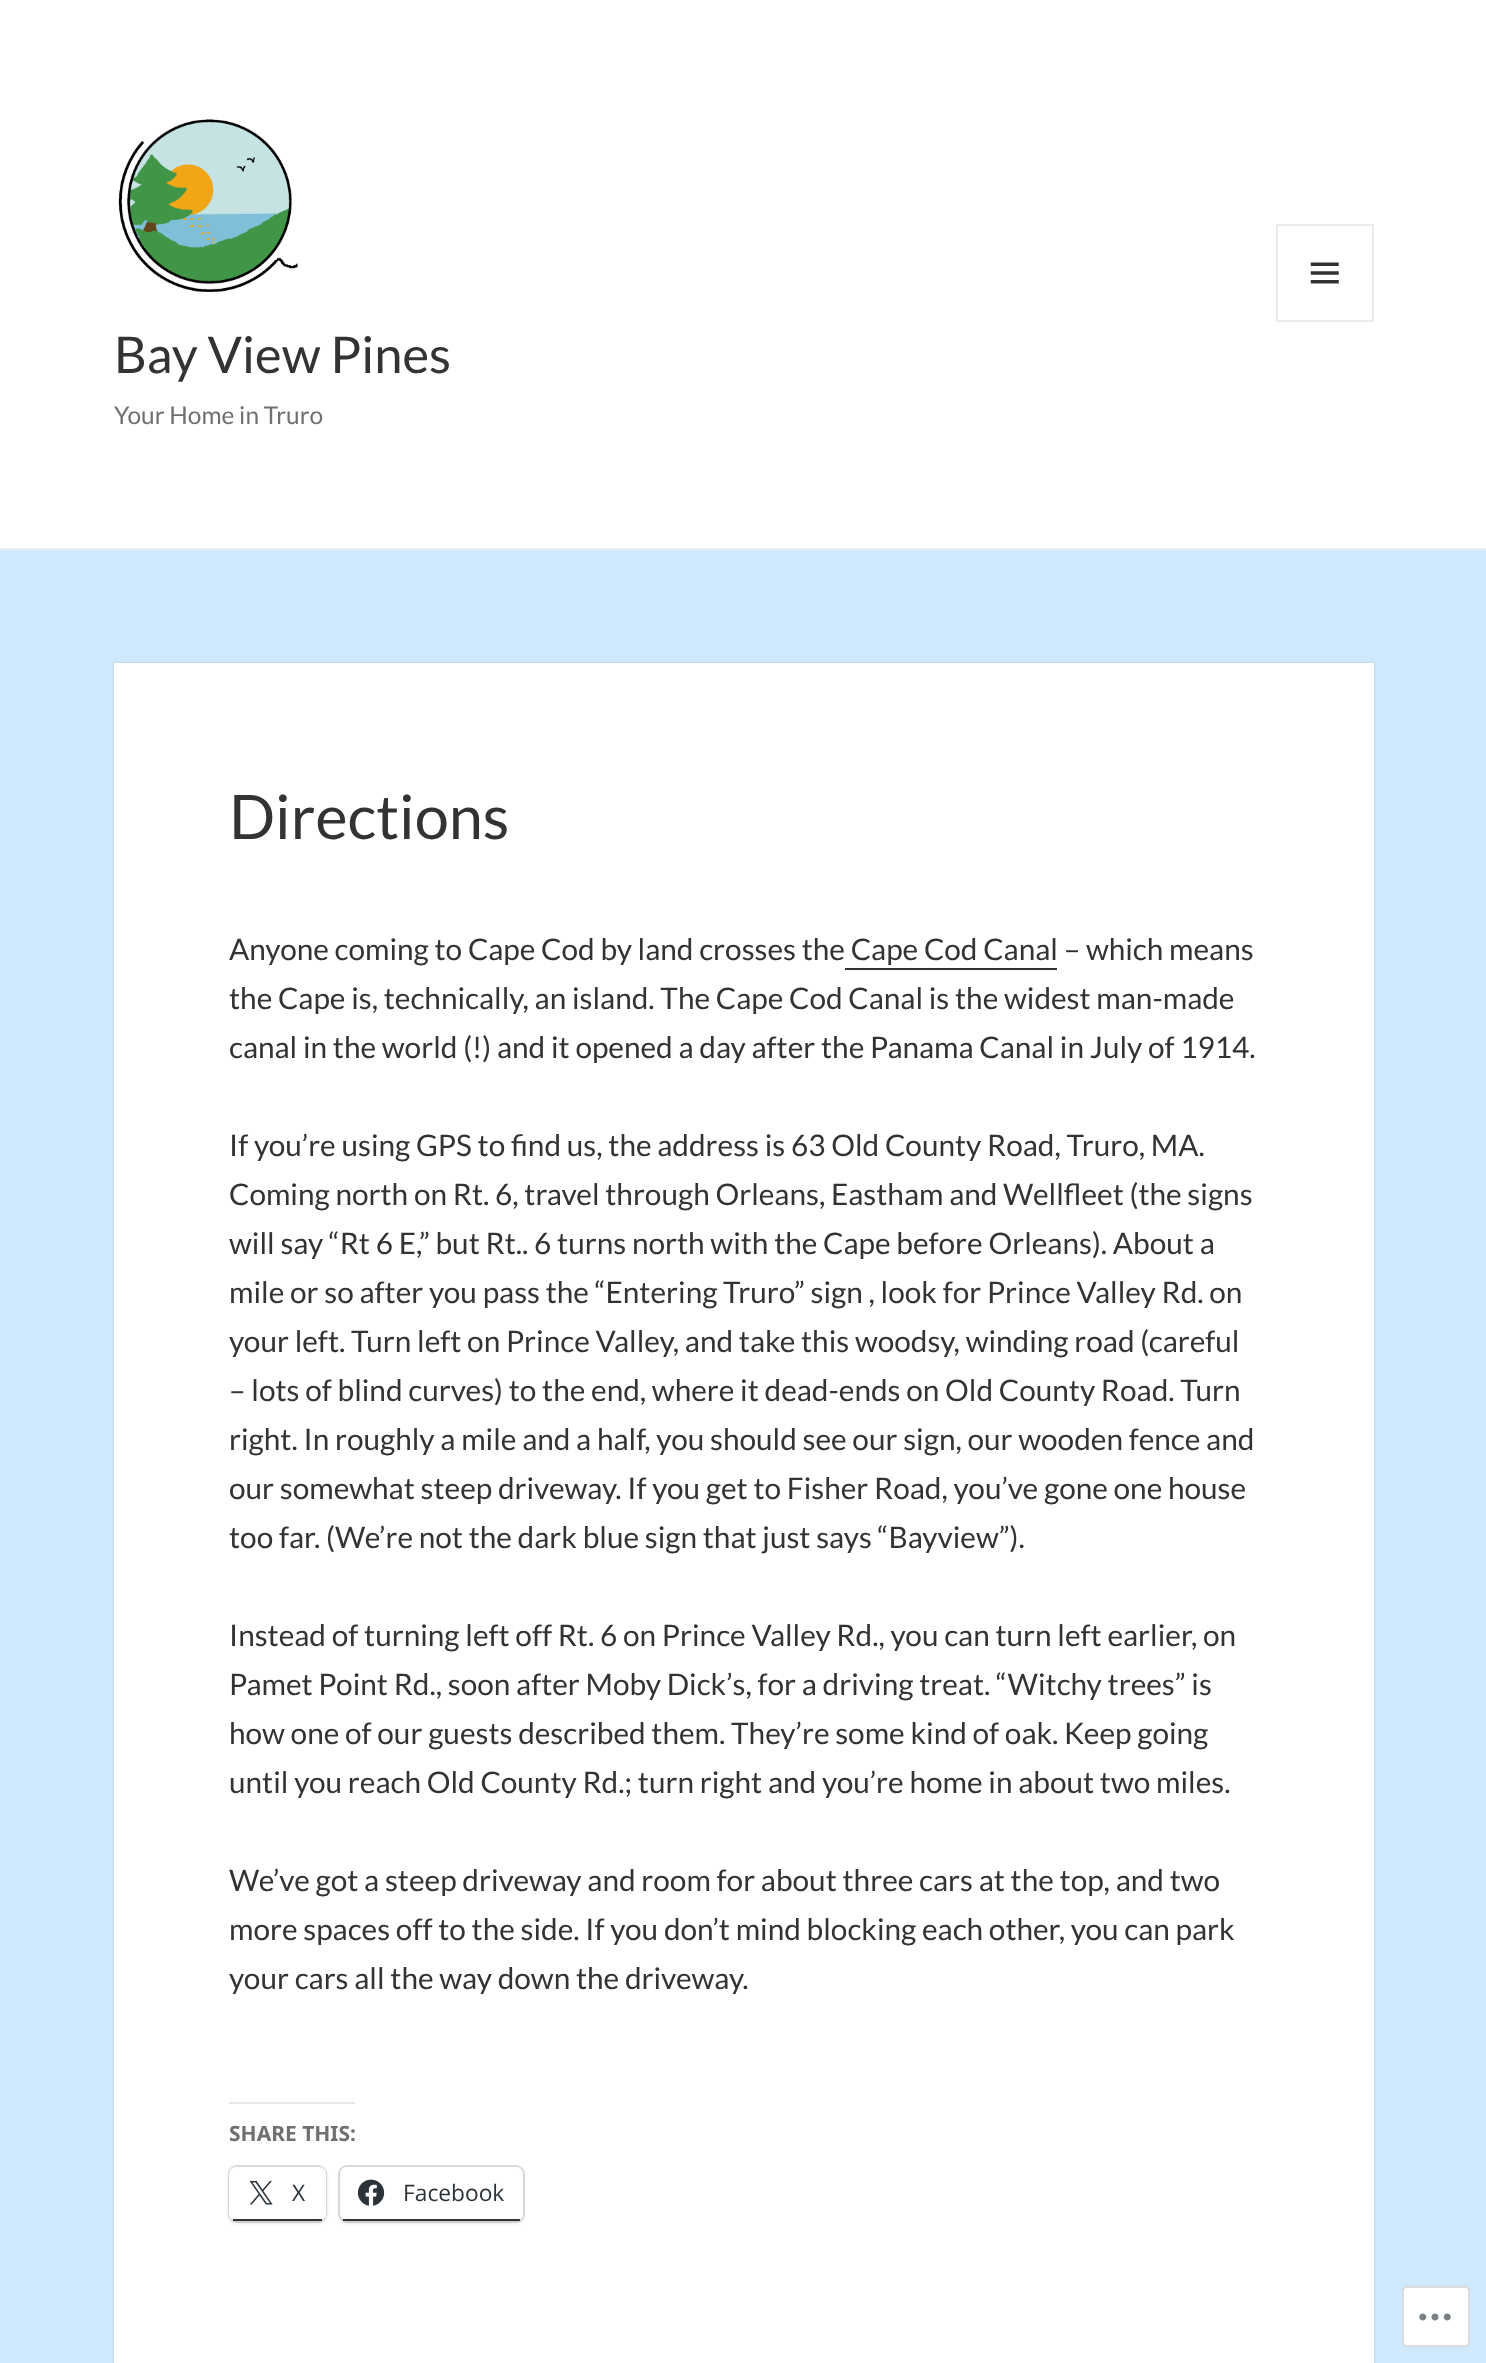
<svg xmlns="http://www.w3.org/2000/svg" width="1486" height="2363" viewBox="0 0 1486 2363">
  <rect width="100%" height="100%" fill="#cfe8fb"/>
  <path d="M0 0h1486v548H0z" fill="#fff"/>
  <path d="M0 548h1486v2H0z" fill="#ebebeb"/>
  <image x="118" y="119" width="180" height="173" href="img/1.png"/>
  <path d="M1277 225h96v96H1277z" fill="none" stroke="#ebebeb" stroke-width="2"/>
  <image x="1310" y="262" width="29" height="22" href="img/2.png"/>
  <path d="M114 663h1260v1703H114z" fill="#00000026" filter="blur(1px)"/>
  <path d="M114 663h1260v1700H114z" fill="#fff"/>
  <path d="M845 968h212v2H845z" fill="#333"/>
  <path d="M229 2102h126v2H229z" fill="#e7e7e8"/>
  <rect x="229" y="2166" width="97" height="56" rx="8" fill="none" stroke="#e0e0e0" stroke-width="2"/>
  <rect x="229" y="2168" width="97" height="55" rx="7" fill="#0000001f" filter="blur(2px)"/>
  <rect x="229" y="2167" width="97" height="54" rx="7" fill="#fff"/>
  <path d="M233 2219h89v2H233z" fill="#333"/>
  <image x="249" y="2180" width="24" height="25" href="img/3.png"/>
  <rect x="339" y="2166" width="185" height="56" rx="8" fill="none" stroke="#e0e0e0" stroke-width="2"/>
  <rect x="340" y="2168" width="183" height="55" rx="7" fill="#0000001f" filter="blur(2px)"/>
  <rect x="340" y="2167" width="183" height="54" rx="7" fill="#fff"/>
  <path d="M343 2219h177v2H343z" fill="#333"/>
  <image x="357" y="2179" width="28" height="27" href="img/4.png"/>
  <rect x="1403" y="2287" width="66" height="59" rx="4" fill="#feffff" stroke="#dcdcdf" stroke-width="2"/>
  <image x="1419" y="2313" width="32" height="8" href="img/5.png"/>
  <text x="114" y="373" font-family="Lato" font-size="50.75" fill="#333">Bay View Pines</text>
  <text x="114" y="424" font-family="Lato" font-size="24.5" fill="#707070">Your Home in Truro</text>
  <text x="229" y="839" font-family="Lato" font-size="61.25" fill="#333">Directions</text>
  <g font-family="Lato" font-size="29.75" fill="#333">
    <text x="229" y="960">Anyone coming to Cape Cod by land crosses the Cape Cod Canal – which means</text>
    <text x="229" y="1009">the Cape is, technically, an island. The Cape Cod Canal is the widest man-made</text>
    <text x="229" y="1058">canal in the world (!) and it opened a day after the Panama Canal in July of 1914.</text>
    <text x="229" y="1156">If you’re using GPS to find us, the address is 63 Old County Road, Truro, MA.</text>
    <text x="229" y="1205">Coming north on Rt. 6, travel through Orleans, Eastham and Wellfleet (the signs</text>
    <text x="229" y="1254">will say “Rt 6 E,” but Rt.. 6 turns north with the Cape before Orleans). About a</text>
    <text x="229" y="1303">mile or so after you pass the “Entering Truro” sign , look for Prince Valley Rd. on</text>
    <text x="229" y="1352">your left. Turn left on Prince Valley, and take this woodsy, winding road (careful</text>
    <text x="229" y="1401">– lots of blind curves) to the end, where it dead-ends on Old County Road. Turn</text>
    <text x="229" y="1450">right. In roughly a mile and a half, you should see our sign, our wooden fence and</text>
    <text x="229" y="1499">our somewhat steep driveway. If you get to Fisher Road, you’ve gone one house</text>
    <text x="229" y="1548">too far. (We’re not the dark blue sign that just says “Bayview”).</text>
    <text x="229" y="1646">Instead of turning left off Rt. 6 on Prince Valley Rd., you can turn left earlier, on</text>
    <text x="229" y="1695">Pamet Point Rd., soon after Moby Dick’s, for a driving treat. “Witchy trees” is</text>
    <text x="229" y="1744">how one of our guests described them. They’re some kind of oak. Keep going</text>
    <text x="229" y="1793">until you reach Old County Rd.; turn right and you’re home in about two miles.</text>
    <text x="229" y="1891">We’ve got a steep driveway and room for about three cars at the top, and two</text>
    <text x="229" y="1940">more spaces off to the side. If you don’t mind blocking each other, you can park</text>
    <text x="229" y="1989">your cars all the way down the driveway.</text>
  </g>
  <text x="229" y="2141" font-family="Noto Sans" font-size="21" font-weight="bold" fill="#707070">SHARE THIS:</text>
  <g font-family="Open Sans" font-size="22.75" fill="#2c3338">
    <text x="292" y="2201">X</text>
    <text x="403" y="2201">Facebook</text>
  </g>
</svg>
